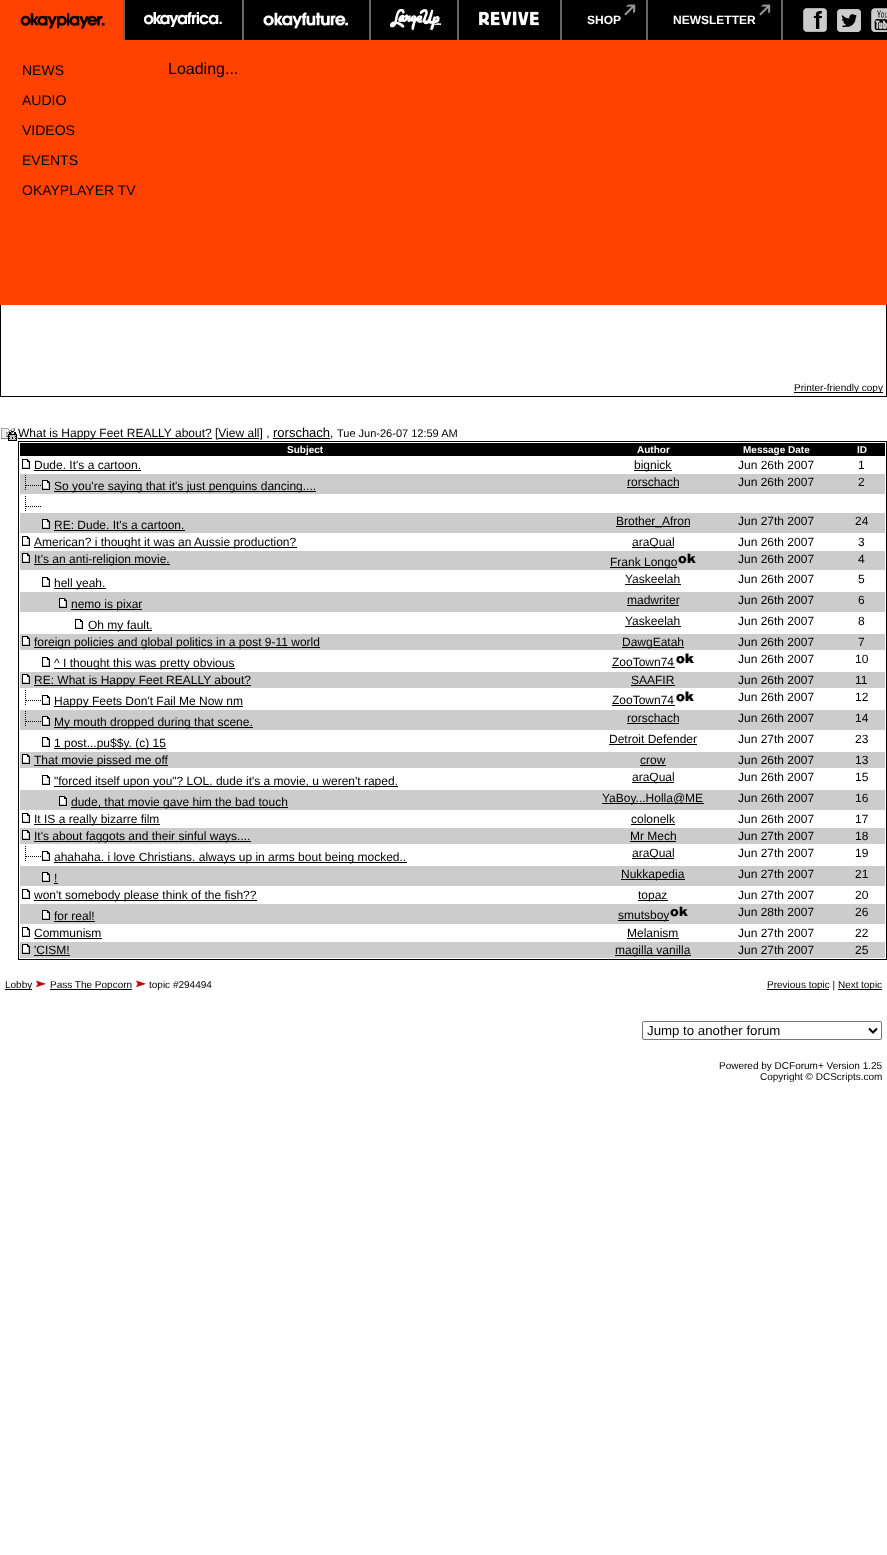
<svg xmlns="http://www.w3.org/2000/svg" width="887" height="1555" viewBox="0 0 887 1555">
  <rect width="100%" height="100%" fill="#fff"/>
  <path d="M125 0h762v40H125z" fill="#000"/>
  <path d="M242 0h2v40H242z" fill="#666"/>
  <image x="144" y="12" width="78" height="15" href="img/1.png"/>
  <path d="M369 0h2v40H369z" fill="#666"/>
  <image x="263" y="12" width="85" height="17" href="img/2.png"/>
  <path d="M457 0h2v40H457z" fill="#666"/>
  <image x="390" y="9" width="51" height="21" href="img/3.png"/>
  <path d="M560 0h2v40H560z" fill="#666"/>
  <image x="479" y="11" width="60" height="15" href="img/4.png"/>
  <path d="M646 0h2v40H646z" fill="#666"/>
  <image x="624" y="4" width="12" height="12" href="img/5.png"/>
  <path d="M781 0h2v40H781z" fill="#666"/>
  <image x="759" y="4" width="12" height="12" href="img/5.png"/>
  <path d="M123 0h2v40H123z" fill="#666"/>
  <path d="M0 0h123v40H0z" fill="#ff4200"/>
  <image x="20" y="13" width="85" height="16" href="img/6.png"/>
  <path d="M0 40h887v265H0z" fill="#ff4200"/>
  <image x="803" y="8" width="24" height="24" href="img/7.png"/>
  <image x="837" y="9" width="24" height="23" href="img/8.png"/>
  <image x="871" y="8" width="16" height="24" href="img/9.png"/>
  <path d="M0 305h887v92H0z" fill="#000"/>
  <path d="M1 305h885v91H1z" fill="#fff"/>
  <path d="M794 392h89v1H794z" fill="#000"/>
  <image x="1" y="428" width="16" height="13" href="img/10.png"/>
  <path d="M18 438h194v1H18z" fill="#000"/>
  <path d="M218 438h41v1H218z" fill="#000"/>
  <path d="M273 438h57v1H273z" fill="#000"/>
  <path d="M18 441h869v519H18z" fill="#000"/>
  <path d="M19 442h867v517H19z" fill="#fff"/>
  <path d="M20 443h865v13H20z" fill="#000"/>
  <image x="22" y="459" width="8" height="10" href="img/11.png"/>
  <path d="M34 470h107v1H34z" fill="#000"/>
  <path d="M634 470h38v1H634z" fill="#000"/>
  <path d="M20 474h865v20H20z" fill="#ccc"/>
  <image x="25" y="475" width="16" height="15" href="img/12.png"/>
  <image x="42" y="480" width="8" height="10" href="img/13.png"/>
  <path d="M54 491h262v1H54z" fill="#000"/>
  <path d="M627 487h52v1H627z" fill="#000"/>
  <image x="25" y="496" width="16" height="15" href="img/14.png"/>
  <path d="M20 513h865v20H20z" fill="#ccc"/>
  <image x="42" y="519" width="8" height="10" href="img/13.png"/>
  <path d="M54 530h131v1H54z" fill="#000"/>
  <path d="M616 526h74v1H616z" fill="#000"/>
  <image x="22" y="536" width="8" height="10" href="img/11.png"/>
  <path d="M34 547h263v1H34z" fill="#000"/>
  <path d="M632 547h42v1H632z" fill="#000"/>
  <path d="M20 551h865v19H20z" fill="#ccc"/>
  <image x="22" y="553" width="8" height="10" href="img/13.png"/>
  <path d="M34 564h136v1H34z" fill="#000"/>
  <path d="M610 567h67v1H610z" fill="#000"/>
  <image x="678" y="553" width="18" height="11" href="img/15.png"/>
  <image x="42" y="577" width="8" height="10" href="img/11.png"/>
  <path d="M54 588h52v1H54z" fill="#000"/>
  <path d="M625 584h56v1H625z" fill="#000"/>
  <path d="M20 592h865v20H20z" fill="#ccc"/>
  <image x="59" y="598" width="8" height="10" href="img/13.png"/>
  <path d="M71 609h71v1H71z" fill="#000"/>
  <path d="M627 605h52v1H627z" fill="#000"/>
  <image x="75" y="619" width="8" height="10" href="img/11.png"/>
  <path d="M88 630h64v1H88z" fill="#000"/>
  <path d="M625 626h56v1H625z" fill="#000"/>
  <path d="M20 634h865v16H20z" fill="#ccc"/>
  <image x="22" y="636" width="8" height="10" href="img/13.png"/>
  <path d="M34 647h286v1H34z" fill="#000"/>
  <path d="M622 647h62v1H622z" fill="#000"/>
  <image x="42" y="657" width="8" height="10" href="img/11.png"/>
  <path d="M54 668h181v1H54z" fill="#000"/>
  <path d="M612 667h63v1H612z" fill="#000"/>
  <image x="676" y="653" width="18" height="11" href="img/16.png"/>
  <path d="M20 672h865v16H20z" fill="#ccc"/>
  <image x="22" y="674" width="8" height="10" href="img/13.png"/>
  <path d="M34 685h217v1H34z" fill="#000"/>
  <path d="M631 685h44v1H631z" fill="#000"/>
  <image x="25" y="690" width="16" height="15" href="img/14.png"/>
  <image x="42" y="695" width="8" height="10" href="img/11.png"/>
  <path d="M54 706h189v1H54z" fill="#000"/>
  <path d="M612 705h63v1H612z" fill="#000"/>
  <image x="676" y="691" width="18" height="11" href="img/16.png"/>
  <path d="M20 710h865v20H20z" fill="#ccc"/>
  <image x="25" y="711" width="16" height="15" href="img/12.png"/>
  <image x="42" y="716" width="8" height="10" href="img/13.png"/>
  <path d="M54 727h199v1H54z" fill="#000"/>
  <path d="M627 723h52v1H627z" fill="#000"/>
  <image x="42" y="737" width="8" height="10" href="img/11.png"/>
  <path d="M54 748h112v1H54z" fill="#000"/>
  <path d="M609 744h88v1H609z" fill="#000"/>
  <path d="M20 752h865v16H20z" fill="#ccc"/>
  <image x="22" y="754" width="8" height="10" href="img/13.png"/>
  <path d="M34 765h134v1H34z" fill="#000"/>
  <path d="M640 765h26v1H640z" fill="#000"/>
  <image x="42" y="775" width="8" height="10" href="img/11.png"/>
  <path d="M54 786h344v1H54z" fill="#000"/>
  <path d="M632 782h42v1H632z" fill="#000"/>
  <path d="M20 790h865v20H20z" fill="#ccc"/>
  <image x="59" y="796" width="8" height="10" href="img/13.png"/>
  <path d="M71 807h217v1H71z" fill="#000"/>
  <path d="M602 803h102v1H602z" fill="#000"/>
  <image x="22" y="813" width="8" height="10" href="img/11.png"/>
  <path d="M34 824h126v1H34z" fill="#000"/>
  <path d="M631 824h44v1H631z" fill="#000"/>
  <path d="M20 828h865v16H20z" fill="#ccc"/>
  <image x="22" y="830" width="8" height="10" href="img/13.png"/>
  <path d="M34 841h217v1H34z" fill="#000"/>
  <path d="M630 841h46v1H630z" fill="#000"/>
  <image x="25" y="846" width="16" height="15" href="img/14.png"/>
  <image x="42" y="851" width="8" height="10" href="img/11.png"/>
  <path d="M54 862h353v1H54z" fill="#000"/>
  <path d="M632 858h42v1H632z" fill="#000"/>
  <path d="M20 866h865v20H20z" fill="#ccc"/>
  <image x="42" y="872" width="8" height="10" href="img/13.png"/>
  <path d="M54 883h4v1H54z" fill="#000"/>
  <path d="M621 879h64v1H621z" fill="#000"/>
  <image x="22" y="889" width="8" height="10" href="img/11.png"/>
  <path d="M34 900h223v1H34z" fill="#000"/>
  <path d="M638 900h30v1H638z" fill="#000"/>
  <path d="M20 904h865v20H20z" fill="#ccc"/>
  <image x="42" y="910" width="8" height="10" href="img/13.png"/>
  <path d="M54 921h41v1H54z" fill="#000"/>
  <path d="M618 920h51v1H618z" fill="#000"/>
  <image x="670" y="906" width="18" height="11" href="img/15.png"/>
  <image x="22" y="927" width="8" height="10" href="img/11.png"/>
  <path d="M34 938h68v1H34z" fill="#000"/>
  <path d="M627 938h52v1H627z" fill="#000"/>
  <path d="M20 942h865v16H20z" fill="#ccc"/>
  <image x="22" y="944" width="8" height="10" href="img/13.png"/>
  <path d="M34 955h36v1H34z" fill="#000"/>
  <path d="M615 955h76v1H615z" fill="#000"/>
  <path d="M5 989h27v1H5z" fill="#000"/>
  <image x="36" y="980" width="11" height="8" href="img/17.png"/>
  <path d="M50 989h82v1H50z" fill="#000"/>
  <image x="136" y="980" width="11" height="8" href="img/17.png"/>
  <path d="M767 989h62v1H767z" fill="#000"/>
  <path d="M838 989h44v1H838z" fill="#000"/>
  <rect x="642.5" y="1021.5" width="239" height="18" rx="1.5" fill="none" stroke="#767676"/>
  <path d="M869 1028.5L873 1032.5L877 1028.5" fill="none" stroke="#000" stroke-width="2"/>
  <g font-family="Liberation Sans" font-size="12" font-weight="bold" fill="#fff">
    <text x="587" y="24">SHOP</text>
    <text x="673" y="24">NEWSLETTER</text>
  </g>
  <g font-family="Liberation Sans" font-size="14" fill="#000">
    <text x="22" y="75">NEWS</text>
    <text x="22" y="105">AUDIO</text>
    <text x="22" y="135">VIDEOS</text>
    <text x="22" y="165">EVENTS</text>
    <text x="22" y="195">OKAYPLAYER TV</text>
  </g>
  <text x="168" y="74" font-family="Liberation Sans" font-size="16" fill="#000">Loading...</text>
  <text x="794" y="391" font-family="Liberation Sans" font-size="10" fill="#000">Printer-friendly copy</text>
  <text x="18" y="437" font-family="Liberation Sans" font-size="12" fill="#000">What is Happy Feet REALLY about? [View all] ,</text>
  <text x="273" y="437" font-family="Liberation Sans" font-size="13" fill="#000">rorschach</text>
  <text x="330" y="437" font-family="Liberation Sans" font-size="12" fill="#000">,</text>
  <text x="337" y="437" font-family="Liberation Sans" font-size="11" fill="#000">Tue Jun-26-07 12:59 AM</text>
  <g font-family="Liberation Sans" font-size="10" font-weight="bold" fill="#fff">
    <text x="287" y="453">Subject</text>
    <text x="637" y="453">Author</text>
    <text x="743" y="453">Message Date</text>
    <text x="857" y="453">ID</text>
  </g>
  <g font-family="Liberation Sans" font-size="12" fill="#000">
    <text x="34" y="469">Dude. It's a cartoon.</text>
    <text x="634" y="469">bignick</text>
    <text x="738" y="469">Jun 26th 2007</text>
    <text x="858" y="469">1</text>
    <text x="54" y="490">So you're saying that it's just penguins dancing....</text>
    <text x="627" y="486">rorschach</text>
    <text x="738" y="486">Jun 26th 2007</text>
    <text x="858" y="486">2</text>
    <text x="54" y="529">RE: Dude. It's a cartoon.</text>
    <text x="616" y="525">Brother_Afron</text>
    <text x="738" y="525">Jun 27th 2007</text>
    <text x="855" y="525">24</text>
    <text x="34" y="546">American? i thought it was an Aussie production?</text>
    <text x="632" y="546">araQual</text>
    <text x="738" y="546">Jun 26th 2007</text>
    <text x="858" y="546">3</text>
    <text x="34" y="563">It's an anti-religion movie.</text>
    <text x="610" y="566">Frank Longo</text>
    <text x="738" y="563">Jun 26th 2007</text>
    <text x="858" y="563">4</text>
    <text x="54" y="587">hell yeah.</text>
    <text x="625" y="583">Yaskeelah</text>
    <text x="738" y="583">Jun 26th 2007</text>
    <text x="858" y="583">5</text>
    <text x="71" y="608">nemo is pixar</text>
    <text x="627" y="604">madwriter</text>
    <text x="738" y="604">Jun 26th 2007</text>
    <text x="858" y="604">6</text>
    <text x="88" y="629">Oh my fault.</text>
    <text x="625" y="625">Yaskeelah</text>
    <text x="738" y="625">Jun 26th 2007</text>
    <text x="858" y="625">8</text>
    <text x="34" y="646">foreign policies and global politics in a post 9-11 world</text>
    <text x="622" y="646">DawgEatah</text>
    <text x="738" y="646">Jun 26th 2007</text>
    <text x="858" y="646">7</text>
    <text x="54" y="667">^ I thought this was pretty obvious</text>
    <text x="612" y="666">ZooTown74</text>
    <text x="738" y="663">Jun 26th 2007</text>
    <text x="855" y="663">10</text>
    <text x="34" y="684">RE: What is Happy Feet REALLY about?</text>
    <text x="631" y="684">SAAFIR</text>
    <text x="738" y="684">Jun 26th 2007</text>
    <text x="855" y="684">11</text>
    <text x="54" y="705">Happy Feets Don't Fail Me Now nm</text>
    <text x="612" y="704">ZooTown74</text>
    <text x="738" y="701">Jun 26th 2007</text>
    <text x="855" y="701">12</text>
    <text x="54" y="726">My mouth dropped during that scene.</text>
    <text x="627" y="722">rorschach</text>
    <text x="738" y="722">Jun 26th 2007</text>
    <text x="855" y="722">14</text>
    <text x="54" y="747">1 post...pu$$y. (c) 15</text>
    <text x="609" y="743">Detroit Defender</text>
    <text x="738" y="743">Jun 27th 2007</text>
    <text x="855" y="743">23</text>
    <text x="34" y="764">That movie pissed me off</text>
    <text x="640" y="764">crow</text>
    <text x="738" y="764">Jun 26th 2007</text>
    <text x="855" y="764">13</text>
    <text x="54" y="785">"forced itself upon you"? LOL. dude it's a movie, u weren't raped.</text>
    <text x="632" y="781">araQual</text>
    <text x="738" y="781">Jun 26th 2007</text>
    <text x="855" y="781">15</text>
    <text x="71" y="806">dude, that movie gave him the bad touch</text>
    <text x="602" y="802">YaBoy...Holla@ME</text>
    <text x="738" y="802">Jun 26th 2007</text>
    <text x="855" y="802">16</text>
    <text x="34" y="823">It IS a really bizarre film</text>
    <text x="631" y="823">colonelk</text>
    <text x="738" y="823">Jun 26th 2007</text>
    <text x="855" y="823">17</text>
    <text x="34" y="840">It's about faggots and their sinful ways....</text>
    <text x="630" y="840">Mr Mech</text>
    <text x="738" y="840">Jun 27th 2007</text>
    <text x="855" y="840">18</text>
    <text x="54" y="861">ahahaha. i love Christians. always up in arms bout being mocked..</text>
    <text x="632" y="857">araQual</text>
    <text x="738" y="857">Jun 27th 2007</text>
    <text x="855" y="857">19</text>
    <text x="54" y="882">!</text>
    <text x="621" y="878">Nukkapedia</text>
    <text x="738" y="878">Jun 27th 2007</text>
    <text x="855" y="878">21</text>
    <text x="34" y="899">won't somebody please think of the fish??</text>
    <text x="638" y="899">topaz</text>
    <text x="738" y="899">Jun 27th 2007</text>
    <text x="855" y="899">20</text>
    <text x="54" y="920">for real!</text>
    <text x="618" y="919">smutsboy</text>
    <text x="738" y="916">Jun 28th 2007</text>
    <text x="855" y="916">26</text>
    <text x="34" y="937">Communism</text>
    <text x="627" y="937">Melanism</text>
    <text x="738" y="937">Jun 27th 2007</text>
    <text x="855" y="937">22</text>
    <text x="34" y="954">'CISM!</text>
    <text x="615" y="954">magilla vanilla</text>
    <text x="738" y="954">Jun 27th 2007</text>
    <text x="855" y="954">25</text>
  </g>
  <g font-family="Liberation Sans" font-size="10" fill="#000">
    <text x="5" y="988">Lobby</text>
    <text x="50" y="988">Pass The Popcorn</text>
    <text x="149" y="988">topic #294494</text>
    <text x="767" y="988">Previous topic | Next</text>
    <text x="861" y="988">topic</text>
  </g>
  <text x="647" y="1035" font-family="Liberation Sans" font-size="13.25" fill="#000">Jump to another forum</text>
  <g font-family="Liberation Sans" font-size="10" fill="#000">
    <text x="719" y="1069">Powered by DCForum+ Version 1.25</text>
    <text x="760" y="1080">Copyright © DCScripts.com</text>
  </g>
</svg>
